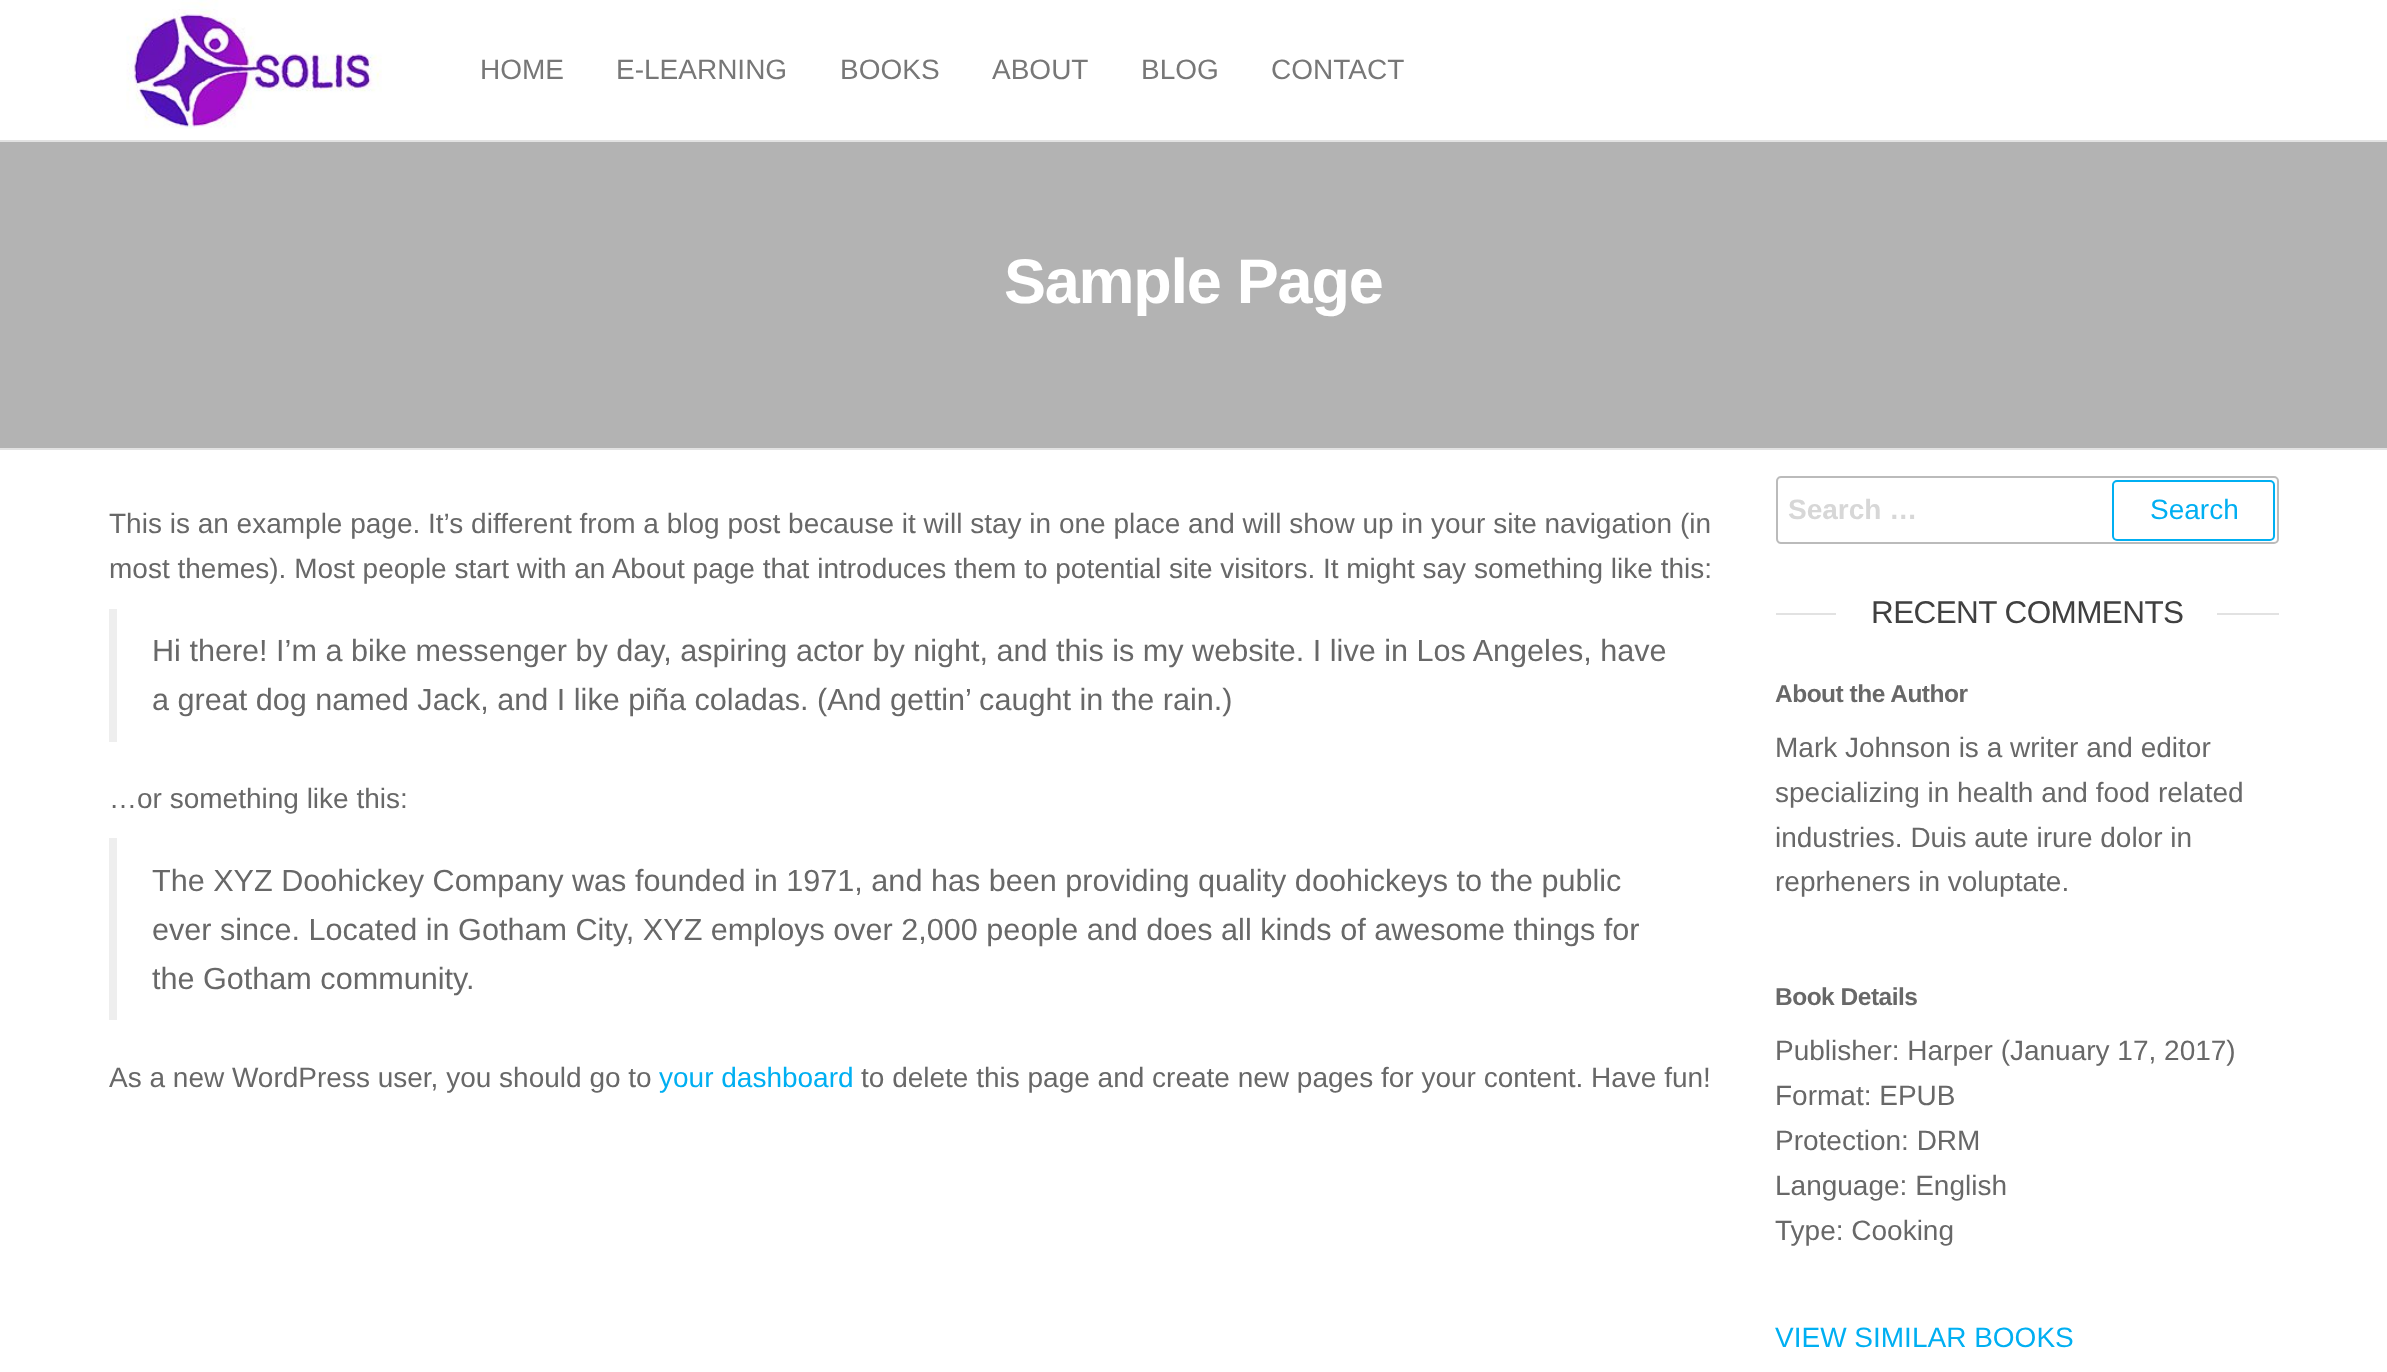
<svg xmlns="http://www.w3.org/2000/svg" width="2387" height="1372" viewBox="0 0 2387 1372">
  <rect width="100%" height="100%" fill="#fff"/>
  <path d="M0 140h2387v2H0z" fill="#e2e2e2"/>
  <image x="126" y="0" width="256" height="129" href="img/1.png"/>
  <path d="M0 448h2387v2H0z" fill="#e2e2e2"/>
  <path d="M0 142h2387v306H0z" fill="#b3b3b3"/>
  <path d="M109 609h8v133H109z" fill="#eee"/>
  <path d="M109 838h8v182H109z" fill="#eee"/>
  <rect x="1777" y="477" width="501" height="66" rx="4" fill="none" stroke="#bbb" stroke-width="2"/>
  <rect x="2113" y="481" width="161" height="59" rx="4" fill="none" stroke="#00aff2" stroke-width="2"/>
  <path d="M1776 613h503v2H1776z" fill="#e2e2e2"/>
  <path d="M1836 613h381v2H1836z" fill="#fff"/>
  <g font-family="Liberation Sans" font-size="28" fill="#777">
    <text x="480" y="79">HOME</text>
    <text x="616" y="79">E-LEARNING</text>
    <text x="840" y="79">BOOKS</text>
    <text x="992" y="79">ABOUT</text>
    <text x="1141" y="79">BLOG</text>
    <text x="1271" y="79">CONTACT</text>
  </g>
  <text x="1004" y="303" font-family="Liberation Sans" font-size="63" font-weight="bold" letter-spacing="-1.25" fill="#fff">Sample Page</text>
  <g font-family="Liberation Sans" font-size="28" fill="#686868">
    <text x="109" y="533">This is an example page. It’s different from a blog post because it will stay in one place and will show up in your site navigation (in</text>
    <text x="109" y="578">most themes). Most people start with an About page that introduces them to potential site visitors. It might say something like this:</text>
  </g>
  <g font-family="Liberation Sans" font-size="30.6" fill="#686868">
    <text x="152" y="661">Hi there! I’m a bike messenger by day, aspiring actor by night, and this is my website. I live in Los Angeles, have</text>
    <text x="152" y="710">a great dog named Jack, and I like piña coladas. (And gettin’ caught in the rain.)</text>
  </g>
  <text x="109" y="808" font-family="Liberation Sans" font-size="28" fill="#686868">…or something like this:</text>
  <g font-family="Liberation Sans" font-size="30.6" fill="#686868">
    <text x="152" y="891">The XYZ Doohickey Company was founded in 1971, and has been providing quality doohickeys to the public</text>
    <text x="152" y="940">ever since. Located in Gotham City, XYZ employs over 2,000 people and does all kinds of awesome things for</text>
    <text x="152" y="989">the Gotham community.</text>
  </g>
  <text x="109" y="1087" font-family="Liberation Sans" font-size="28" fill="#686868">As a new WordPress user, you should go to</text>
  <text x="659" y="1087" font-family="Liberation Sans" font-size="28" fill="#00aff2">your dashboard</text>
  <text x="861" y="1087" font-family="Liberation Sans" font-size="28" fill="#686868">to delete this page and create new pages for your content. Have fun!</text>
  <text x="1788" y="519" font-family="Liberation Sans" font-size="28" font-weight="bold" fill="#d7d7d7">Search …</text>
  <text x="2150" y="519" font-family="Liberation Sans" font-size="28" fill="#00aff2">Search</text>
  <text x="1871" y="623" font-family="Liberation Sans" font-size="31.5" letter-spacing="-0.6" fill="#404040">RECENT COMMENTS</text>
  <text x="1775" y="702" font-family="Liberation Sans" font-size="24.5" font-weight="bold" letter-spacing="-0.5" fill="#686868">About the Author</text>
  <g font-family="Liberation Sans" font-size="28" fill="#686868">
    <text x="1775" y="757">Mark Johnson is a writer and editor</text>
    <text x="1775" y="802">specializing in health and food related</text>
    <text x="1775" y="847">industries. Duis aute irure dolor in</text>
    <text x="1775" y="891">reprheners in voluptate.</text>
  </g>
  <text x="1775" y="1005" font-family="Liberation Sans" font-size="24.5" font-weight="bold" letter-spacing="-0.5" fill="#686868">Book Details</text>
  <g font-family="Liberation Sans" font-size="28" fill="#686868">
    <text x="1775" y="1060">Publisher: Harper (January 17, 2017)</text>
    <text x="1775" y="1105">Format: EPUB</text>
    <text x="1775" y="1150">Protection: DRM</text>
    <text x="1775" y="1195">Language: English</text>
    <text x="1775" y="1240">Type: Cooking</text>
  </g>
  <text x="1775" y="1347" font-family="Liberation Sans" font-size="28" fill="#00aff2">VIEW SIMILAR BOOKS</text>
</svg>
